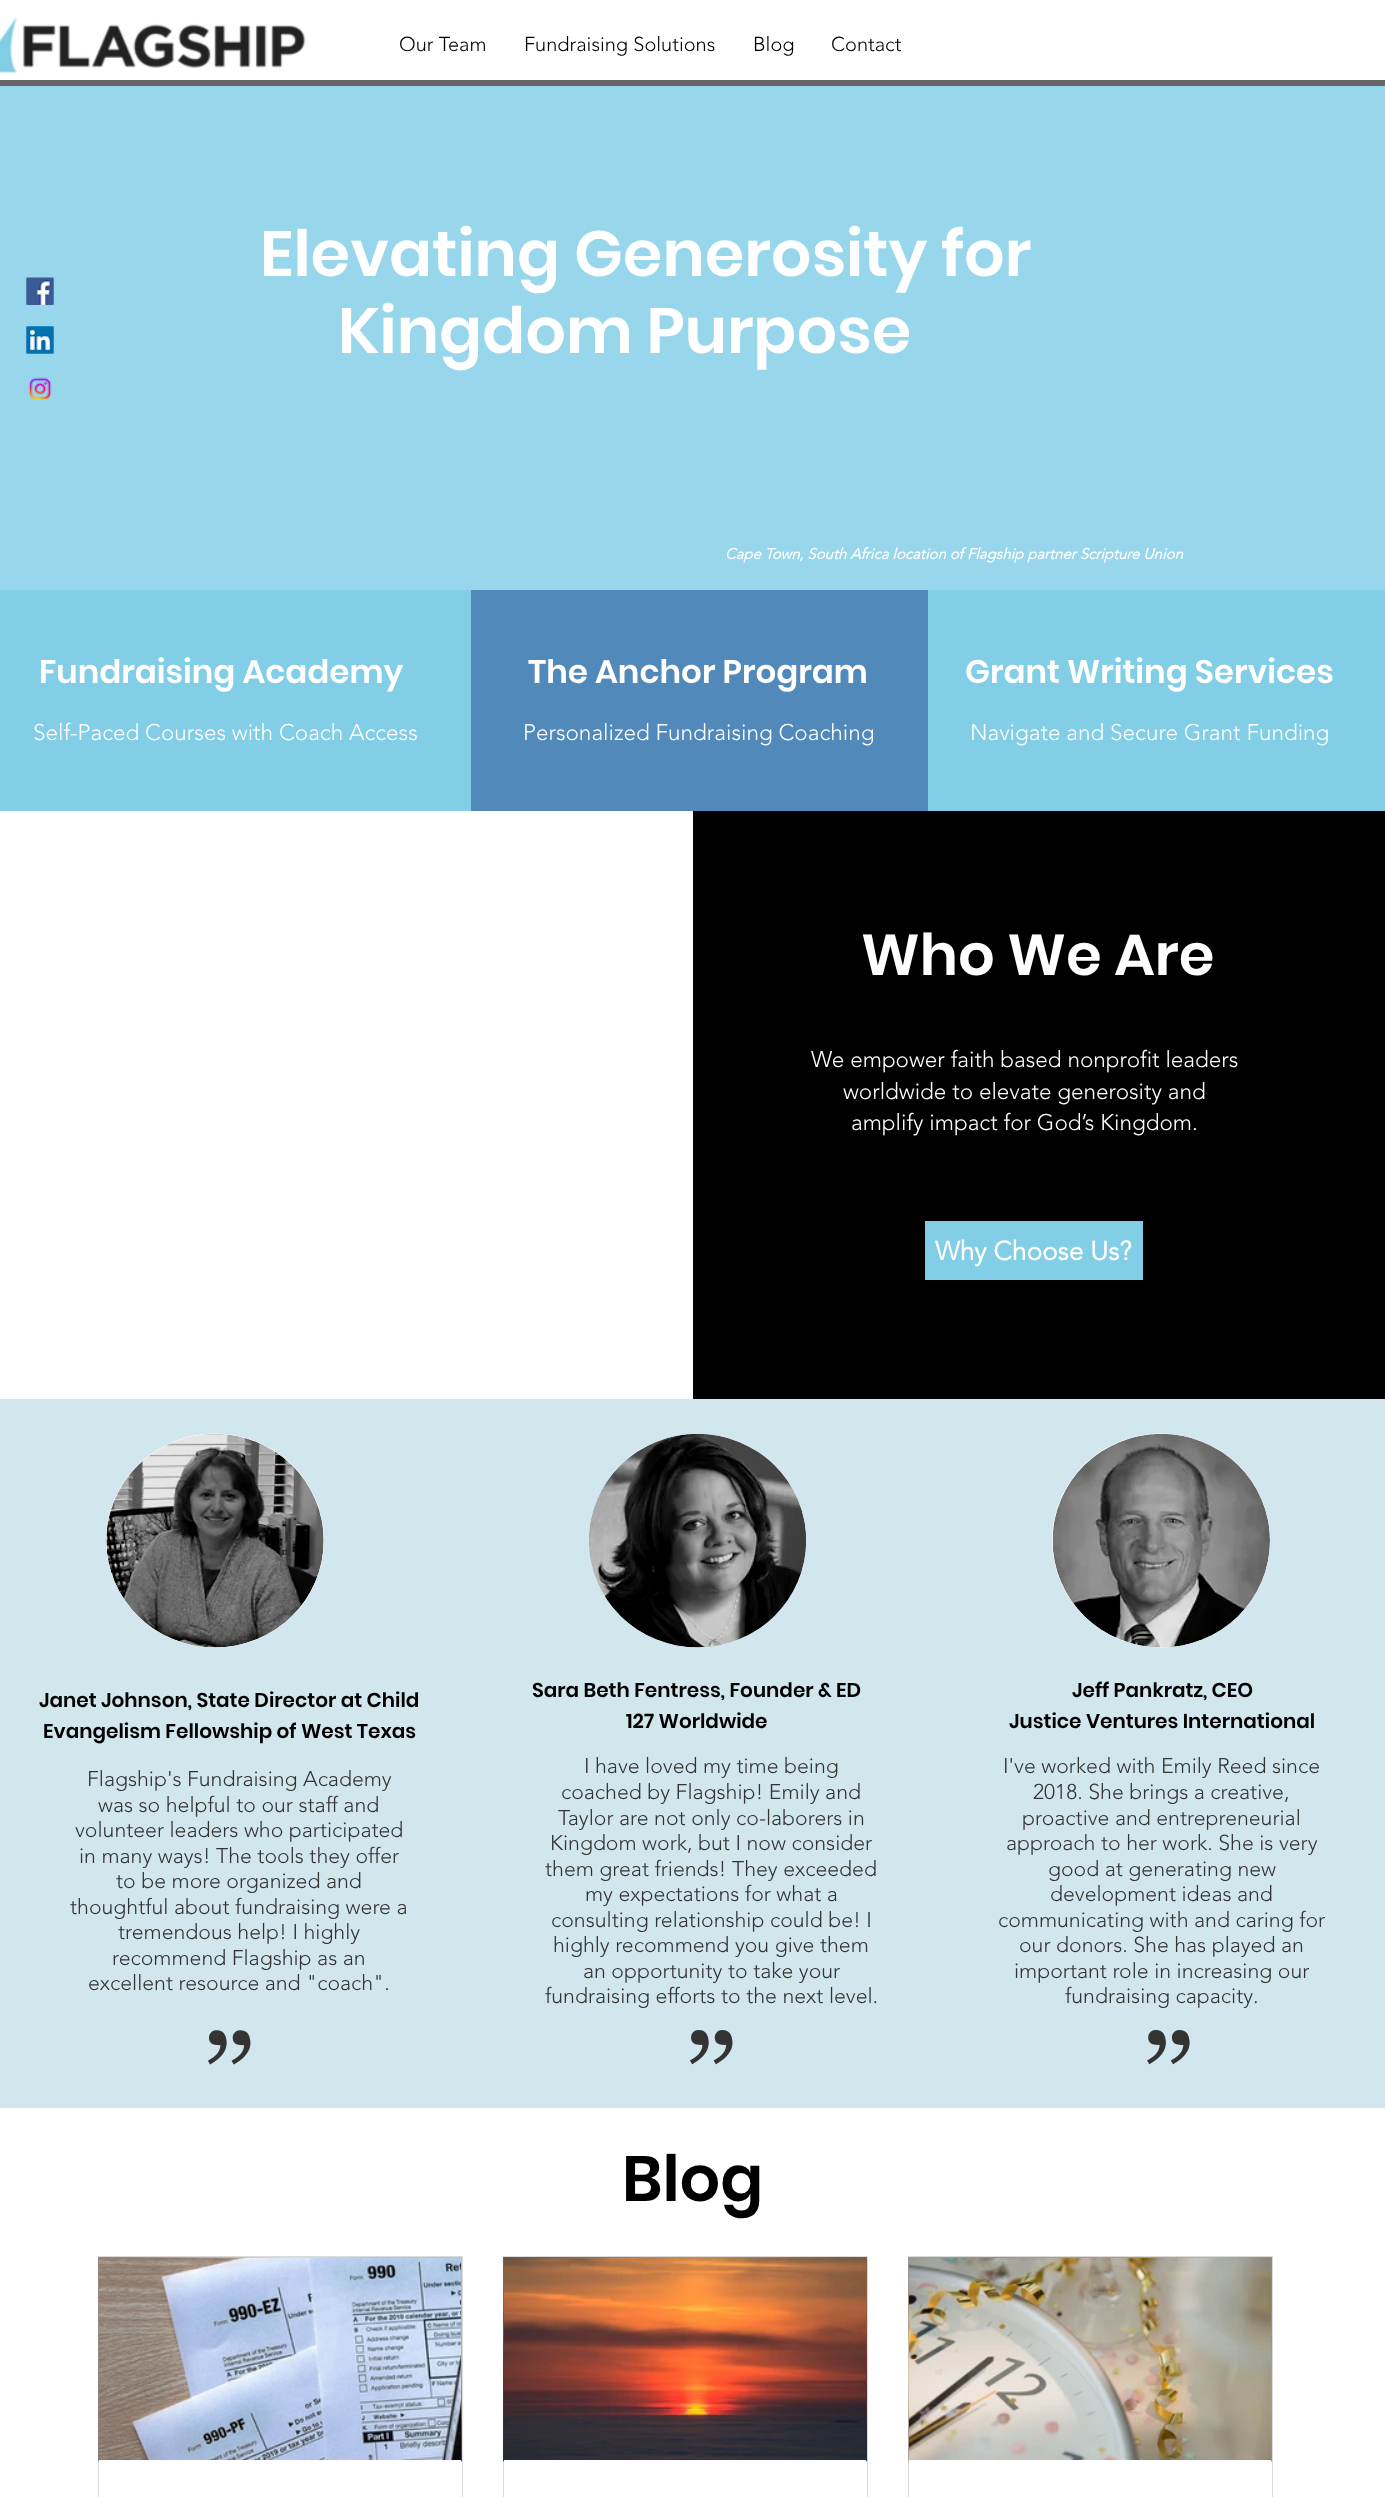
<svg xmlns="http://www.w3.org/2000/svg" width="1385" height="2497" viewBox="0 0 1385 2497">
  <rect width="100%" height="100%" fill="#fff"/>
  <image x="0" y="16" width="306" height="57" href="img/1.png"/>
  <path d="M0 80h1385v6H0z" fill="#666"/>
  <path d="M0 86h1385v504H0z" fill="#98d7eb"/>
  <image x="26" y="277" width="28" height="28" href="img/2.png"/>
  <image x="26" y="326" width="28" height="28" href="img/3.png"/>
  <image x="28" y="377" width="24" height="24" href="img/4.png"/>
  <path d="M0 590h471v221H0z" fill="#81cee6"/>
  <path d="M471 590h457v221H471z" fill="#5089ba"/>
  <path d="M928 590h457v221H928z" fill="#81cee6"/>
  <path d="M693 811h692v588H693z" fill="#000"/>
  <path d="M925 1221h218v59H925z" fill="#81cee6"/>
  <path d="M0 1399h1385v709H0z" fill="#d1e6ed"/>
  <ellipse cx="215" cy="1540.5" rx="109" ry="107" fill="#fff"/>
  <image x="106" y="1434" width="218" height="214" href="img/5.png"/>
  <image x="207" y="2030" width="44" height="35" href="img/6.png"/>
  <image x="589" y="1434" width="217" height="214" href="img/7.png"/>
  <image x="690" y="2030" width="43" height="35" href="img/8.png"/>
  <ellipse cx="1161" cy="1540.5" rx="109" ry="107" fill="#fff"/>
  <image x="1052" y="1434" width="218" height="214" href="img/9.png"/>
  <image x="1147" y="2030" width="43" height="35" href="img/10.png"/>
  <path d="M98.5 2256.5h364v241H98.5z" fill="none" stroke="#dbdbdb"/>
  <image x="98" y="2257" width="364" height="205" href="img/11.png"/>
  <image x="99" y="2258" width="362" height="202" href="img/12.png"/>
  <path d="M99 2460h362v2H99z" fill="#fff"/>
  <path d="M503.5 2256.5h364v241H503.5z" fill="none" stroke="#dbdbdb"/>
  <image x="503" y="2257" width="364" height="205" href="img/13.png"/>
  <image x="504" y="2258" width="362" height="202" href="img/14.png"/>
  <path d="M504 2460h362v2H504z" fill="#fff"/>
  <path d="M908.5 2256.5h364v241H908.5z" fill="none" stroke="#dbdbdb"/>
  <image x="908" y="2257" width="364" height="205" href="img/15.png"/>
  <image x="909" y="2258" width="362" height="202" href="img/16.png"/>
  <path d="M909 2460h362v2H909z" fill="#fff"/>
  <g font-family="'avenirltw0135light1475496'" font-size="20" font-weight="300" fill="#000">
    <text x="399" y="51">Our Team</text>
    <text x="524" y="51">Fundraising Solutions</text>
    <text x="753" y="51">Blog</text>
    <text x="831" y="51">Contact</text>
  </g>
  <g font-family="Poppins" font-size="63.75" font-weight="600" fill="#fff">
    <text x="260" y="276">Elevating Generosity for</text>
    <text x="338" y="353">Kingdom Purpose</text>
  </g>
  <text x="725" y="559" font-family="'avenirltw0135light1475496'" font-size="15" font-weight="bold" font-style="italic" fill="#fff">Cape Town, South Africa location of Flagship partner Scripture Union</text>
  <text x="39" y="683" font-family="Poppins" font-size="32.5" font-weight="600" fill="#fff">Fundraising Academy</text>
  <text x="33" y="740" font-family="'avenirltw0135light1475496'" font-size="22.5" font-weight="300" fill="#fff">Self-Paced Courses with Coach Access</text>
  <text x="528" y="683" font-family="Poppins" font-size="32.5" font-weight="600" fill="#fff">The Anchor Program</text>
  <text x="523" y="740" font-family="'avenirltw0135light1475496'" font-size="22.5" font-weight="300" fill="#fff">Personalized Fundraising Coaching</text>
  <text x="965" y="683" font-family="Poppins" font-size="32.5" font-weight="600" fill="#fff">Grant Writing Services</text>
  <text x="970" y="740" font-family="'avenirltw0135light1475496'" font-size="22.5" font-weight="300" fill="#fff">Navigate and Secure Grant Funding</text>
  <text x="861" y="975" font-family="Poppins" font-size="57.5" font-weight="600" fill="#fff">Who We Are</text>
  <g font-family="'avenirltw0135light1475496'" font-size="22.5" font-weight="300" fill="#fff">
    <text x="811" y="1067">We empower faith based nonprofit leaders</text>
    <text x="843" y="1099">worldwide to elevate generosity and</text>
    <text x="851" y="1130">amplify impact for God’s Kingdom.</text>
  </g>
  <text x="935" y="1260" font-family="'avenirltw0135light1475496'" font-size="26.25" font-weight="bold" fill="#fff">Why Choose Us?</text>
  <g font-family="Poppins" font-size="20" font-weight="600" fill="#000">
    <text x="39" y="1707">Janet Johnson, State Director at Child</text>
    <text x="43" y="1738">Evangelism Fellowship of West Texas</text>
  </g>
  <g font-family="'avenirltw0135light1475496'" font-size="21.25" font-weight="300" fill="#333">
    <text x="87" y="1786">Flagship's Fundraising Academy</text>
    <text x="98" y="1812">was so helpful to our staff and</text>
    <text x="75" y="1837">volunteer leaders who participated</text>
    <text x="79" y="1863">in many ways! The tools they offer</text>
    <text x="116" y="1888">to be more organized and</text>
    <text x="70" y="1914">thoughtful about fundraising were a</text>
    <text x="118" y="1939">tremendous help! I highly</text>
    <text x="112" y="1965">recommend Flagship as an</text>
    <text x="88" y="1990">excellent resource and "coach".</text>
  </g>
  <g font-family="Poppins" font-size="20" font-weight="600" fill="#000">
    <text x="532" y="1697">Sara Beth Fentress, Founder &amp; ED</text>
    <text x="626" y="1728">127 Worldwide</text>
  </g>
  <g font-family="'avenirltw0135light1475496'" font-size="21.25" font-weight="300" fill="#333">
    <text x="584" y="1773">I have loved my time being</text>
    <text x="561" y="1799">coached by Flagship! Emily and</text>
    <text x="558" y="1825">Taylor are not only co-laborers in</text>
    <text x="550" y="1850">Kingdom work, but I now consider</text>
    <text x="545" y="1876">them great friends! They exceeded</text>
    <text x="585" y="1901">my expectations for what a</text>
    <text x="551" y="1927">consulting relationship could be! I</text>
    <text x="553" y="1952">highly recommend you give them</text>
    <text x="583" y="1978">an opportunity to take your</text>
    <text x="545" y="2003">fundraising efforts to the next level.</text>
  </g>
  <g font-family="Poppins" font-size="20" font-weight="600" fill="#000">
    <text x="1072" y="1697">Jeff Pankratz, CEO</text>
    <text x="1009" y="1728">Justice Ventures International</text>
  </g>
  <g font-family="'avenirltw0135light1475496'" font-size="21.25" font-weight="300" fill="#333">
    <text x="1003" y="1773">I've worked with Emily Reed since</text>
    <text x="1033" y="1799">2018. She brings a creative,</text>
    <text x="1022" y="1825">proactive and entrepreneurial</text>
    <text x="1006" y="1850">approach to her work. She is very</text>
    <text x="1048" y="1876">good at generating new</text>
    <text x="1050" y="1901">development ideas and</text>
    <text x="998" y="1927">communicating with and caring for</text>
    <text x="1019" y="1952">our donors. She has played an</text>
    <text x="1014" y="1978">important role in increasing our</text>
    <text x="1065" y="2003">fundraising capacity.</text>
  </g>
  <text x="622" y="2201" font-family="Poppins" font-size="63.75" font-weight="600" fill="#000">Blog</text>
</svg>
